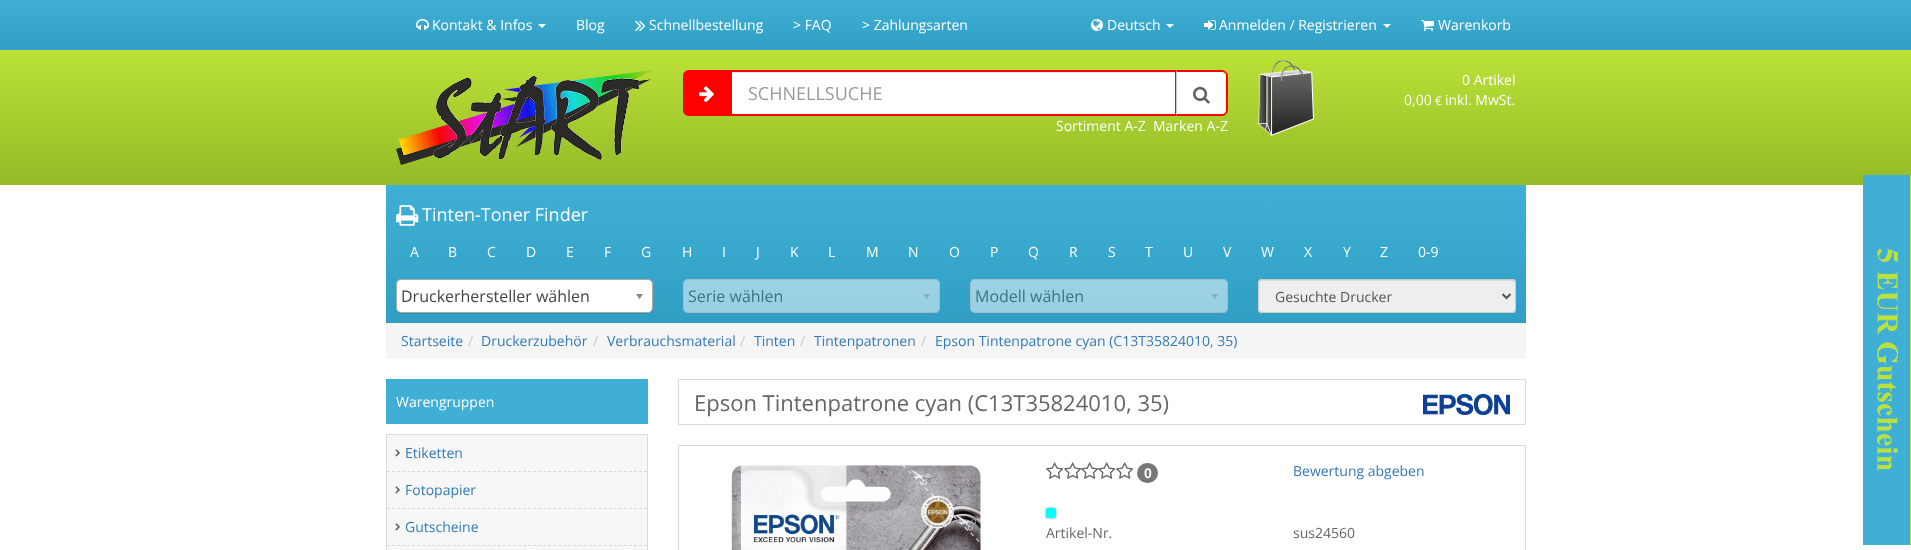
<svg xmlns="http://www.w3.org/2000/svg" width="1911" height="550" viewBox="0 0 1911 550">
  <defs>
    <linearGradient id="g1" gradientUnits="userSpaceOnUse" x1="956" y1="0" x2="956" y2="50"><stop offset="0" stop-color="#3fafd5"/><stop offset="1" stop-color="#319fc4"/></linearGradient>
    <linearGradient id="g2" gradientUnits="userSpaceOnUse" x1="956" y1="50" x2="956" y2="185"><stop offset="0" stop-color="#bbe237"/><stop offset="1" stop-color="#94ba27"/></linearGradient>
    <linearGradient id="g3" gradientUnits="userSpaceOnUse" x1="956" y1="185" x2="956" y2="323"><stop offset="0" stop-color="#3fafd5"/><stop offset="1" stop-color="#319fc4"/></linearGradient>
  </defs>
  <rect width="100%" height="100%" fill="#fff"/>
  <path d="M0 0h1911v50H0z" fill="url(#g1)"/>
  <image x="416" y="19" width="13" height="11" href="img/1.png"/>
  <path d="M538 24H546L542 28Z" fill="#fff"/>
  <image x="635" y="20" width="11" height="12" href="img/2.png"/>
  <image x="1091" y="19" width="12" height="12" href="img/3.png"/>
  <path d="M1166 24H1174L1170 28Z" fill="#fff"/>
  <image x="1204" y="20" width="12" height="10" href="img/4.png"/>
  <path d="M1383 24H1391L1387 28Z" fill="#fff"/>
  <image x="1421" y="20" width="13" height="11" href="img/5.png"/>
  <path d="M0 50h1911v135H0z" fill="url(#g2)"/>
  <image x="396" y="70" width="257" height="95" href="img/6.png"/>
  <path d="M689 70H730V116H689C685.5 116 683 113.5 683 110V76C683 72.5 685.5 70 689 70Z" fill="#f00"/>
  <image x="699" y="86" width="15" height="16" href="img/7.png"/>
  <path d="M732 73h443v41H732z" fill="#fff"/>
  <path d="M732 72h443v1H732z" fill="#ececec"/>
  <path d="M731 71h445v44H731z" fill="none" stroke="#f00" stroke-width="2"/>
  <path d="M1177 72H1222C1224 72 1226 74 1226 76V110C1226 112 1224 114 1222 114H1177Z" fill="#fff"/>
  <path d="M1176 70L1177 72H1222C1223 72 1224 72 1225 73L1226 72C1225 71 1224 70 1222 70Z" fill="#f00"/>
  <path d="M1228 110V76C1228 74 1227 73 1226 72L1225 73C1226 74 1226 75 1226 76V110C1226 111 1226 112 1225 113L1226 114C1227 113 1228 112 1228 110Z" fill="#f00"/>
  <path d="M1222 116C1224 116 1225 115 1226 114L1225 113C1224 114 1223 114 1222 114H1177L1176 116Z" fill="#f00"/>
  <path d="M1176 70V116L1177 114V72Z" fill="#ccc"/>
  <image x="1193" y="86" width="17" height="18" href="img/8.png"/>
  <image x="1258" y="60" width="56" height="76" href="img/9.png"/>
  <path d="M386 185h1140v138H386z" fill="url(#g3)"/>
  <image x="396" y="205" width="23" height="21" href="img/10.png"/>
  <rect x="396" y="280" width="257" height="34" rx="5" fill="#0000001a" filter="blur(0.5px)"/>
  <rect x="396.5" y="279.5" width="256" height="33" rx="4.5" fill="#fff" stroke="#aaa"/>
  <image x="636" y="294" width="7" height="6" href="img/11.png"/>
  <rect x="683" y="279" width="257" height="34" rx="5" fill="#ffffff80"/>
  <rect x="683.5" y="279.5" width="256" height="33" rx="4.5" fill="none" stroke="#aaaaaa80"/>
  <image x="923" y="294" width="7" height="5" href="img/12.png"/>
  <rect x="970" y="279" width="258" height="34" rx="5" fill="#ffffff80"/>
  <rect x="970.5" y="279.5" width="257" height="33" rx="4.5" fill="none" stroke="#aaaaaa80"/>
  <image x="1211" y="294" width="7" height="5" href="img/12.png"/>
  <rect x="1258" y="279" width="258" height="34" rx="4" fill="#eee"/>
  <path d="M1262 281H1513L1515 282V284C1515 282 1514 280 1512 280H1262C1260 280 1259 282 1259 284C1259 282 1260 281 1262 281Z" fill="#dcdcdc"/>
  <rect x="1258.5" y="279.5" width="257" height="33" rx="3.5" fill="none" stroke="#ccc"/>
  <path d="M1502.5 294L1506.5 298L1510.5 294" fill="none" stroke="#555" stroke-width="2"/>
  <path d="M386 323h1140v36H386z" fill="#f5f5f5"/>
  <image x="1863" y="175" width="48" height="370" href="img/13.png"/>
  <path d="M386 379h262v45H386z" fill="#3fafd5"/>
  <path d="M386.5 434.5h261v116H386.5z" fill="#f7f7f7" stroke="#d9d9d9"/>
  <path d="M387 471.5H647" fill="none" stroke="#d9d9d9" stroke-dasharray="3 2.04"/>
  <image x="395" y="449" width="5" height="8" href="img/14.png"/>
  <path d="M387 508.5H647" fill="none" stroke="#d9d9d9" stroke-dasharray="3 2.04"/>
  <image x="395" y="486" width="5" height="8" href="img/14.png"/>
  <path d="M387 545.5H647" fill="none" stroke="#d9d9d9" stroke-dasharray="3 2.04"/>
  <image x="395" y="523" width="5" height="8" href="img/14.png"/>
  <path d="M678.5 379.5h847v45H678.5z" fill="none" stroke="#d9d9d9"/>
  <image x="1423" y="394" width="87" height="21" href="img/15.png"/>
  <path d="M678.5 445.5h847v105H678.5z" fill="none" stroke="#d9d9d9"/>
  <image x="731" y="465" width="250" height="85" href="img/16.png"/>
  <image x="1046" y="462" width="18" height="17" href="img/17.png"/>
  <image x="1064" y="462" width="18" height="17" href="img/17.png"/>
  <image x="1081" y="462" width="18" height="17" href="img/18.png"/>
  <image x="1098" y="462" width="18" height="17" href="img/18.png"/>
  <image x="1116" y="462" width="18" height="17" href="img/17.png"/>
  <rect x="1137" y="463" width="21" height="20" rx="10" fill="#777"/>
  <rect x="1046" y="508" width="10" height="10" rx="2" fill="#888" filter="blur(1px)"/>
  <rect x="1046" y="508" width="10" height="10" rx="2" fill="#0ff"/>
  <g font-family="Open Sans" font-size="14" fill="#fff">
    <text x="432" y="30">Kontakt &amp; Infos</text>
    <text x="576" y="30">Blog</text>
    <text x="649" y="30">Schnellbestellung</text>
    <text x="793" y="30">&gt; FAQ</text>
    <text x="862" y="30">&gt; Zahlungsarten</text>
    <text x="1107" y="30">Deutsch</text>
    <text x="1219" y="30">Anmelden / Registrieren</text>
    <text x="1438" y="30">Warenkorb</text>
  </g>
  <text x="748" y="100" font-family="Open Sans" font-size="18" fill="#999">SCHNELLSUCHE</text>
  <g font-family="Open Sans" font-size="14" fill="#fff">
    <text x="1056" y="131">Sortiment A-Z</text>
    <text x="1153" y="131">Marken A-Z</text>
    <text x="1462" y="85">0 Artikel</text>
    <text x="1404" y="105">0,00</text>
  </g>
  <text x="1435" y="105" font-family="Open Sans" font-size="12" fill="#fff">€</text>
  <text x="1445" y="105" font-family="Open Sans" font-size="14" fill="#fff">inkl. MwSt.</text>
  <text x="422" y="221" font-family="Open Sans" font-size="18" fill="#fff">Tinten-Toner Finder</text>
  <g font-family="Open Sans" font-size="14" fill="#fff">
    <text x="410" y="257">A</text>
    <text x="448" y="257">B</text>
    <text x="487" y="257">C</text>
    <text x="526" y="257">D</text>
    <text x="566" y="257">E</text>
    <text x="604" y="257">F</text>
    <text x="641" y="257">G</text>
    <text x="682" y="257">H</text>
    <text x="722" y="257">I</text>
    <text x="756" y="257">J</text>
    <text x="790" y="257">K</text>
    <text x="828" y="257">L</text>
    <text x="866" y="257">M</text>
    <text x="908" y="257">N</text>
    <text x="949" y="257">O</text>
    <text x="990" y="257">P</text>
    <text x="1028" y="257">Q</text>
    <text x="1069" y="257">R</text>
    <text x="1108" y="257">S</text>
    <text x="1145" y="257">T</text>
    <text x="1183" y="257">U</text>
    <text x="1223" y="257">V</text>
    <text x="1261" y="257">W</text>
    <text x="1304" y="257">X</text>
    <text x="1343" y="257">Y</text>
    <text x="1380" y="257">Z</text>
    <text x="1418" y="257">0-9</text>
  </g>
  <text x="401" y="302" font-family="Open Sans" font-size="16" fill="#444">Druckerhersteller wählen</text>
  <g font-family="Open Sans" font-size="16" fill="#3c7386">
    <text x="688" y="302">Serie wählen</text>
    <text x="975" y="302">Modell wählen</text>
  </g>
  <text x="1275" y="302" font-family="Open Sans" font-size="14" fill="#555">Gesuchte Drucker</text>
  <text x="401" y="346" font-family="Open Sans" font-size="14" fill="#337ab7">Startseite</text>
  <text x="468" y="346" font-family="Open Sans" font-size="14" fill="#ccc">/</text>
  <text x="481" y="346" font-family="Open Sans" font-size="14" fill="#337ab7">Druckerzubehör</text>
  <text x="593" y="346" font-family="Open Sans" font-size="14" fill="#ccc">/</text>
  <text x="607" y="346" font-family="Open Sans" font-size="14" fill="#337ab7">Verbrauchsmaterial</text>
  <text x="740" y="346" font-family="Open Sans" font-size="14" fill="#ccc">/</text>
  <text x="754" y="346" font-family="Open Sans" font-size="14" fill="#337ab7">Tinten</text>
  <text x="800" y="346" font-family="Open Sans" font-size="14" fill="#ccc">/</text>
  <text x="814" y="346" font-family="Open Sans" font-size="14" fill="#337ab7">Tintenpatronen</text>
  <text x="921" y="346" font-family="Open Sans" font-size="14" fill="#ccc">/</text>
  <text x="935" y="346" font-family="Open Sans" font-size="14" fill="#337ab7">Epson Tintenpatrone cyan (C13T35824010, 35)</text>
  <text x="396" y="407" font-family="Open Sans" font-size="14" fill="#fff">Warengruppen</text>
  <g font-family="Open Sans" font-size="14" fill="#337ab7">
    <text x="405" y="458">Etiketten</text>
    <text x="405" y="495">Fotopapier</text>
    <text x="405" y="532">Gutscheine</text>
  </g>
  <text x="694" y="411" font-family="Open Sans" font-size="22" fill="#656565">Epson Tintenpatrone cyan (C13T35824010, 35)</text>
  <text x="1144" y="478" font-family="Liberation Sans" font-size="14" font-weight="bold" fill="#fff">0</text>
  <text x="1293" y="476" font-family="Open Sans" font-size="14" fill="#337ab7">Bewertung abgeben</text>
  <g font-family="Open Sans" font-size="14" fill="#656565">
    <text x="1046" y="538">Artikel-Nr.</text>
    <text x="1293" y="538">sus24560</text>
  </g>
</svg>
